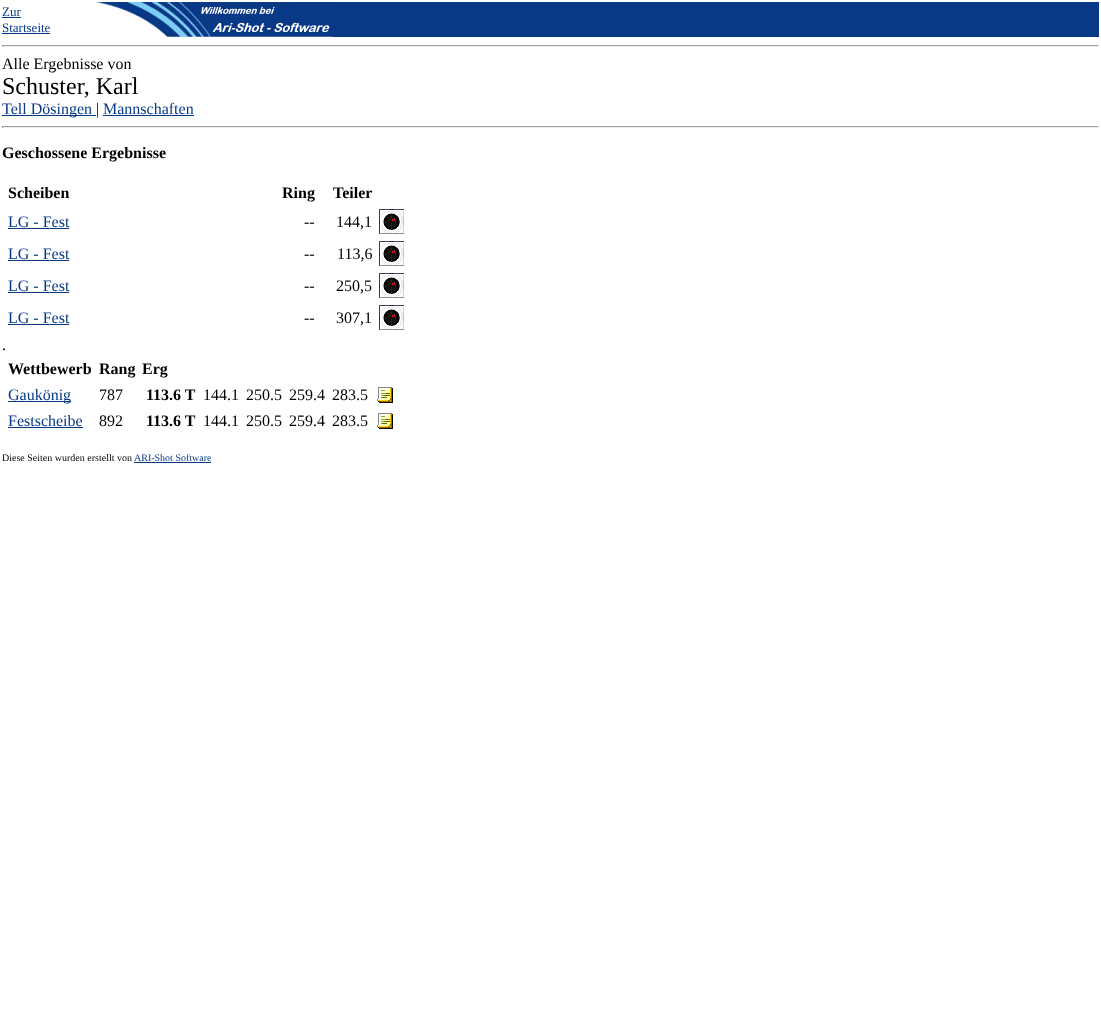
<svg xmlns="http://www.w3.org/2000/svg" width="1101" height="1030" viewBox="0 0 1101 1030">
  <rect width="100%" height="100%" fill="#fff"/>
  <path d="M2 17h19v1H2z" fill="#083986"/>
  <path d="M2 33h48v1H2z" fill="#083986"/>
  <image x="96" y="2" width="236" height="35" href="img/1.png"/>
  <path d="M332 2h767v35H332z" fill="#083986"/>
  <path d="M2 45h1097v1H2z" fill="#9f9f9f"/>
  <path d="M1098 45h1v2H1098z" fill="#eee"/>
  <path d="M2 46h1097v1H2z" fill="#eee"/>
  <path d="M2 45h1v2H2z" fill="#9f9f9f"/>
  <path d="M2 115h94v1H2z" fill="#083986"/>
  <path d="M103 115h91v1H103z" fill="#083986"/>
  <path d="M2 126h1097v1H2z" fill="#9f9f9f"/>
  <path d="M1098 126h1v2H1098z" fill="#eee"/>
  <path d="M2 127h1097v1H2z" fill="#eee"/>
  <path d="M2 126h1v2H2z" fill="#9f9f9f"/>
  <path d="M8 228h61v1H8z" fill="#083986"/>
  <image x="379" y="209" width="25" height="25" href="img/2.png"/>
  <path d="M8 260h61v1H8z" fill="#083986"/>
  <image x="379" y="241" width="25" height="25" href="img/2.png"/>
  <path d="M8 292h61v1H8z" fill="#083986"/>
  <image x="379" y="273" width="25" height="25" href="img/2.png"/>
  <path d="M8 324h61v1H8z" fill="#083986"/>
  <image x="379" y="305" width="25" height="25" href="img/2.png"/>
  <path d="M8 401h63v1H8z" fill="#083986"/>
  <image x="377" y="387" width="16" height="16" href="img/3.png"/>
  <path d="M8 427h75v1H8z" fill="#083986"/>
  <image x="377" y="413" width="16" height="16" href="img/3.png"/>
  <path d="M134 462h77v1H134z" fill="#083986"/>
  <g font-family="Liberation Serif" font-size="13" fill="#083986">
    <text x="2" y="16">Zur</text>
    <text x="2" y="32">Startseite</text>
  </g>
  <text x="2" y="69" font-family="Liberation Serif" font-size="16" fill="#000">Alle Ergebnisse von</text>
  <text x="2" y="94" font-family="Liberation Serif" font-size="24" fill="#000">Schuster, Karl</text>
  <text x="2" y="114" font-family="Liberation Serif" font-size="16" fill="#083986">Tell Dösingen</text>
  <text x="96" y="114" font-family="Liberation Serif" font-size="16" fill="#000">|</text>
  <text x="103" y="114" font-family="Liberation Serif" font-size="16" fill="#083986">Mannschaften</text>
  <g font-family="Liberation Serif" font-size="16" font-weight="bold" fill="#000">
    <text x="2" y="158">Geschossene Ergebnisse</text>
    <text x="8" y="198">Scheiben</text>
    <text x="282" y="198">Ring</text>
    <text x="333" y="198">Teiler</text>
  </g>
  <text x="8" y="227" font-family="Liberation Serif" font-size="16" fill="#083986">LG - Fest</text>
  <g font-family="Liberation Serif" font-size="16" fill="#000">
    <text x="304" y="227">--</text>
    <text x="336" y="227">144,1</text>
  </g>
  <text x="8" y="259" font-family="Liberation Serif" font-size="16" fill="#083986">LG - Fest</text>
  <g font-family="Liberation Serif" font-size="16" fill="#000">
    <text x="304" y="259">--</text>
    <text x="337" y="259">113,6</text>
  </g>
  <text x="8" y="291" font-family="Liberation Serif" font-size="16" fill="#083986">LG - Fest</text>
  <g font-family="Liberation Serif" font-size="16" fill="#000">
    <text x="304" y="291">--</text>
    <text x="336" y="291">250,5</text>
  </g>
  <text x="8" y="323" font-family="Liberation Serif" font-size="16" fill="#083986">LG - Fest</text>
  <g font-family="Liberation Serif" font-size="16" fill="#000">
    <text x="304" y="323">--</text>
    <text x="336" y="323">307,1</text>
    <text x="2" y="350">.</text>
  </g>
  <g font-family="Liberation Serif" font-size="16" font-weight="bold" fill="#000">
    <text x="8" y="374">Wettbewerb</text>
    <text x="99" y="374">Rang</text>
    <text x="142" y="374">Erg</text>
  </g>
  <text x="8" y="400" font-family="Liberation Serif" font-size="16" fill="#083986">Gaukönig</text>
  <text x="99" y="400" font-family="Liberation Serif" font-size="16" fill="#000">787</text>
  <text x="146" y="400" font-family="Liberation Serif" font-size="16" font-weight="bold" fill="#000">113.6 T</text>
  <g font-family="Liberation Serif" font-size="16" fill="#000">
    <text x="203" y="400">144.1</text>
    <text x="246" y="400">250.5</text>
    <text x="289" y="400">259.4</text>
    <text x="332" y="400">283.5</text>
  </g>
  <text x="8" y="426" font-family="Liberation Serif" font-size="16" fill="#083986">Festscheibe</text>
  <text x="99" y="426" font-family="Liberation Serif" font-size="16" fill="#000">892</text>
  <text x="146" y="426" font-family="Liberation Serif" font-size="16" font-weight="bold" fill="#000">113.6 T</text>
  <g font-family="Liberation Serif" font-size="16" fill="#000">
    <text x="203" y="426">144.1</text>
    <text x="246" y="426">250.5</text>
    <text x="289" y="426">259.4</text>
    <text x="332" y="426">283.5</text>
  </g>
  <text x="2" y="461" font-family="Liberation Serif" font-size="10" fill="#000">Diese Seiten wurden erstellt von</text>
  <text x="134" y="461" font-family="Liberation Serif" font-size="10" fill="#083986">ARI-Shot Software</text>
</svg>
